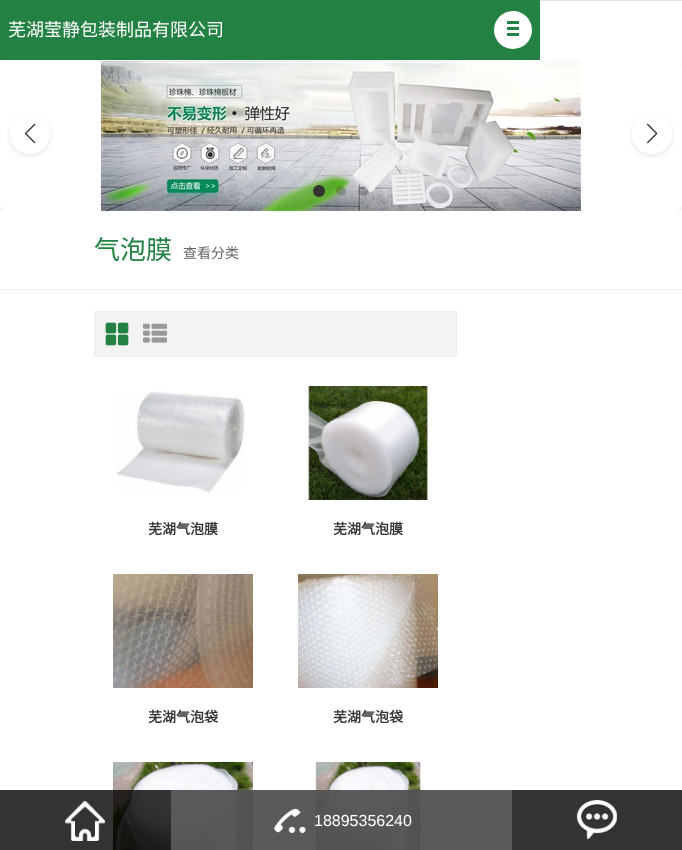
<svg xmlns="http://www.w3.org/2000/svg" width="682" height="850" viewBox="0 0 682 850">
  <defs>
    <clipPath id="clip1"><path d="M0 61h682v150H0z"/></clipPath>
    <clipPath id="clip2"><path d="M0 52H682V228H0ZM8 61H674C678.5 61 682 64.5 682 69V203C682 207.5 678.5 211 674 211H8C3.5 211 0 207.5 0 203V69C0 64.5 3.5 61 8 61Z" clip-rule="evenodd"/></clipPath>
    <clipPath id="clip3"><path d="M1 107H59V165H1ZM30 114C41 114 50 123 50 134C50 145 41 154 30 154C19 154 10 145 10 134C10 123 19 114 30 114Z" clip-rule="evenodd"/></clipPath>
    <clipPath id="clip4"><path d="M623 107H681V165H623ZM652 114C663 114 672 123 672 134C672 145 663 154 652 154C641 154 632 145 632 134C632 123 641 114 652 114Z" clip-rule="evenodd"/></clipPath>
  </defs>
  <rect width="100%" height="100%" fill="#fff"/>
  <path d="M540 0h142v1H540z" fill="#e1e1e1"/>
  <g clip-path="url(#clip1)">
    <rect x="-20" y="65" width="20" height="150" rx="8" fill="#0000001a" filter="blur(4px)"/>
  </g>
  <g clip-path="url(#clip1)">
    <g clip-path="url(#clip2)">
      <rect y="65" width="682" height="150" rx="8" fill="#0000001a" filter="blur(4px)"/>
    </g>
  </g>
  <path d="M0 0h540v60H0z" fill="#238143"/>
  <circle cx="513" cy="30" r="19" fill="#fff"/>
  <path d="M507 21h12v3H507z" fill="#238143"/>
  <path d="M507 27h12v3H507z" fill="#238143"/>
  <path d="M507 33h12v3H507z" fill="#238143"/>
  <image x="101" y="61" width="480" height="150" href="img/1.png"/>
  <g clip-path="url(#clip1)">
    <rect x="682" y="65" width="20" height="150" rx="8" fill="#0000001a" filter="blur(4px)"/>
  </g>
  <g clip-path="url(#clip3)">
    <rect x="10" y="116" width="40" height="40" rx="20" fill="#0000001a" filter="blur(2.5px)"/>
  </g>
  <circle cx="30" cy="134" r="20" fill="#ffffffcc"/>
  <image x="25" y="123" width="11" height="21" href="img/2.png"/>
  <g clip-path="url(#clip4)">
    <rect x="632" y="116" width="40" height="40" rx="20" fill="#0000001a" filter="blur(2.5px)"/>
  </g>
  <circle cx="652" cy="134" r="20" fill="#ffffffcc"/>
  <image x="647" y="123" width="11" height="21" href="img/3.png"/>
  <circle cx="319" cy="191" r="6" fill="#333"/>
  <circle cx="341" cy="191" r="5" fill="#00000033"/>
  <circle cx="363" cy="191" r="5" fill="#00000033"/>
  <path d="M0 289h682v1H0z" fill="#eee"/>
  <path d="M94.5 311.5h362v45H94.5z" fill="#f3f3f3" stroke="#eee"/>
  <image x="105" y="322" width="24" height="24" href="img/4.png"/>
  <image x="143" y="323" width="24" height="20" href="img/5.png"/>
  <image x="116" y="391" width="129" height="102" href="img/6.png"/>
  <image x="308" y="386" width="121" height="114" href="img/7.png"/>
  <image x="113" y="574" width="140" height="114" href="img/8.png"/>
  <image x="298" y="574" width="140" height="114" href="img/9.png"/>
  <image x="113" y="762" width="140" height="88" href="img/10.png"/>
  <image x="315" y="762" width="106" height="88" href="img/11.png"/>
  <path d="M0 790h682v60H0z" fill="#000000cc"/>
  <image x="65" y="800" width="40" height="41" href="img/12.png"/>
  <path d="M171 790h341v60H171z" fill="#646464cc"/>
  <image x="273" y="808" width="33" height="26" href="img/13.png"/>
  <image x="576" y="800" width="41" height="41" href="img/14.png"/>
  <text x="8" y="36" font-family="Noto Sans CJK SC" font-size="18" fill="#fff">芜湖莹静包装制品有限公司</text>
  <text x="94" y="259" font-family="Noto Sans CJK SC" font-size="26" fill="#238143">气泡膜</text>
  <text x="183" y="258" font-family="Noto Sans CJK SC" font-size="14" fill="#666">查看分类</text>
  <g font-family="Noto Sans CJK SC" font-size="14" font-weight="bold" fill="#333">
    <text x="148" y="534">芜湖气泡膜</text>
    <text x="333" y="534">芜湖气泡膜</text>
    <text x="148" y="722">芜湖气泡袋</text>
    <text x="333" y="722">芜湖气泡袋</text>
  </g>
  <text x="314" y="826" font-family="Liberation Sans" font-size="16" fill="#fff">18895356240</text>
</svg>
